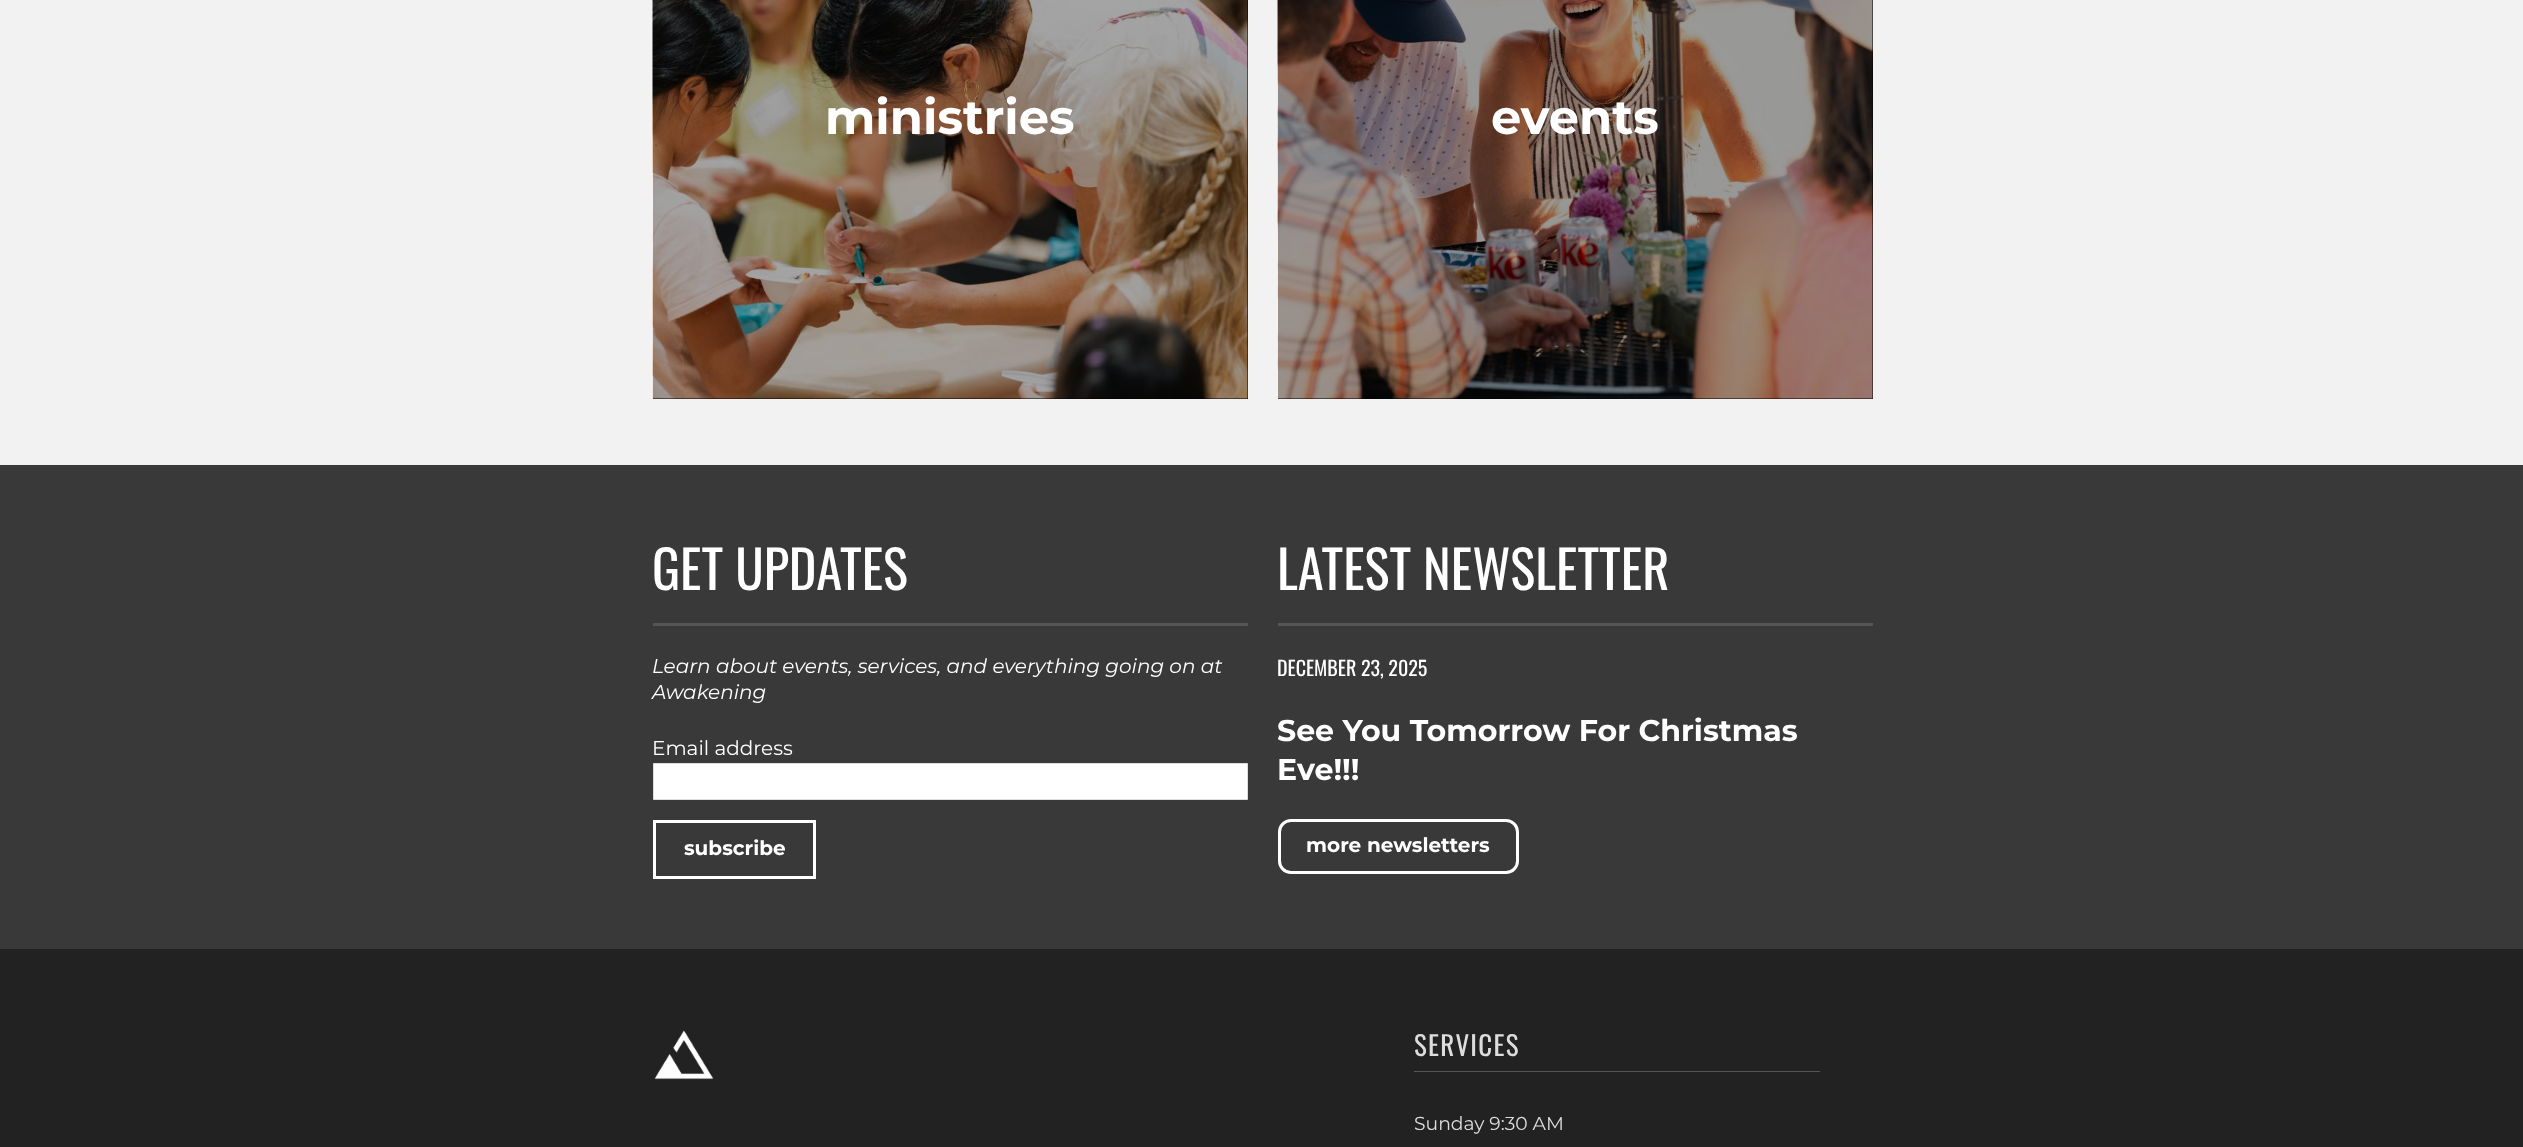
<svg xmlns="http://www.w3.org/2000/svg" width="2523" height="1147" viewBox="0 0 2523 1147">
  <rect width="100%" height="100%" fill="#f2f2f2"/>
  <path d="M653 0h595v399H653z" fill="#000"/>
  <image x="652" y="0" width="596" height="399" href="img/1.png"/>
  <path d="M1278 0h595v399H1278z" fill="#000"/>
  <image x="1277" y="0" width="596" height="399" href="img/2.png"/>
  <path d="M0 465h2523v484H0z" fill="#393939"/>
  <path d="M653 623h595v3H653z" fill="#555"/>
  <path d="M653.5 763.5h594v36H653.5z" fill="#fff" stroke="#ddd"/>
  <path d="M654.5 821.5h160v56H654.5z" fill="none" stroke="#fff" stroke-width="3"/>
  <path d="M1278 623h595v3H1278z" fill="#555"/>
  <rect x="1279.5" y="820.5" width="238" height="52" rx="11.5" fill="none" stroke="#fff" stroke-width="3"/>
  <path d="M0 949h2523v198H0z" fill="#222"/>
  <image x="654" y="1030" width="60" height="50" href="img/3.png"/>
  <path d="M1414 1071h406v1H1414z" fill="#555"/>
  <g font-family="'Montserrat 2'" font-size="48" font-weight="100" fill="#fff">
    <text x="825" y="134">ministries</text>
    <text x="1491" y="134">events</text>
  </g>
  <text x="652" y="590" font-family="Oswald" font-size="52.5" fill="#fff">GET UPDATES</text>
  <g font-family="Montserrat" font-size="20" font-weight="100" font-style="italic" fill="#fff">
    <text x="652" y="673">Learn about events, services, and everything going on at</text>
    <text x="652" y="699">Awakening</text>
  </g>
  <text x="652" y="755" font-family="Montserrat" font-size="20" font-weight="100" fill="#fff">Email address</text>
  <text x="684" y="855" font-family="'Montserrat 2'" font-size="20" font-weight="100" fill="#fff">subscribe</text>
  <text x="1277" y="590" font-family="Oswald" font-size="52.5" fill="#fff">LATEST NEWSLETTER</text>
  <text x="1277" y="676" font-family="Oswald" font-size="20" fill="#fff">DECEMBER 23, 2025</text>
  <g font-family="'Montserrat 2'" font-size="30" font-weight="100" fill="#fff">
    <text x="1277" y="741">See You Tomorrow For Christmas</text>
    <text x="1277" y="780">Eve!!!</text>
  </g>
  <text x="1306" y="852" font-family="'Montserrat 2'" font-size="20" font-weight="100" fill="#fff">more newsletters</text>
  <text x="1414" y="1056" font-family="Oswald" font-size="27" letter-spacing="1.25" fill="#ddd">SERVICES</text>
  <text x="1414" y="1130" font-family="Montserrat" font-size="18.75" font-weight="100" fill="#ddd">Sunday 9:30 AM</text>
</svg>
